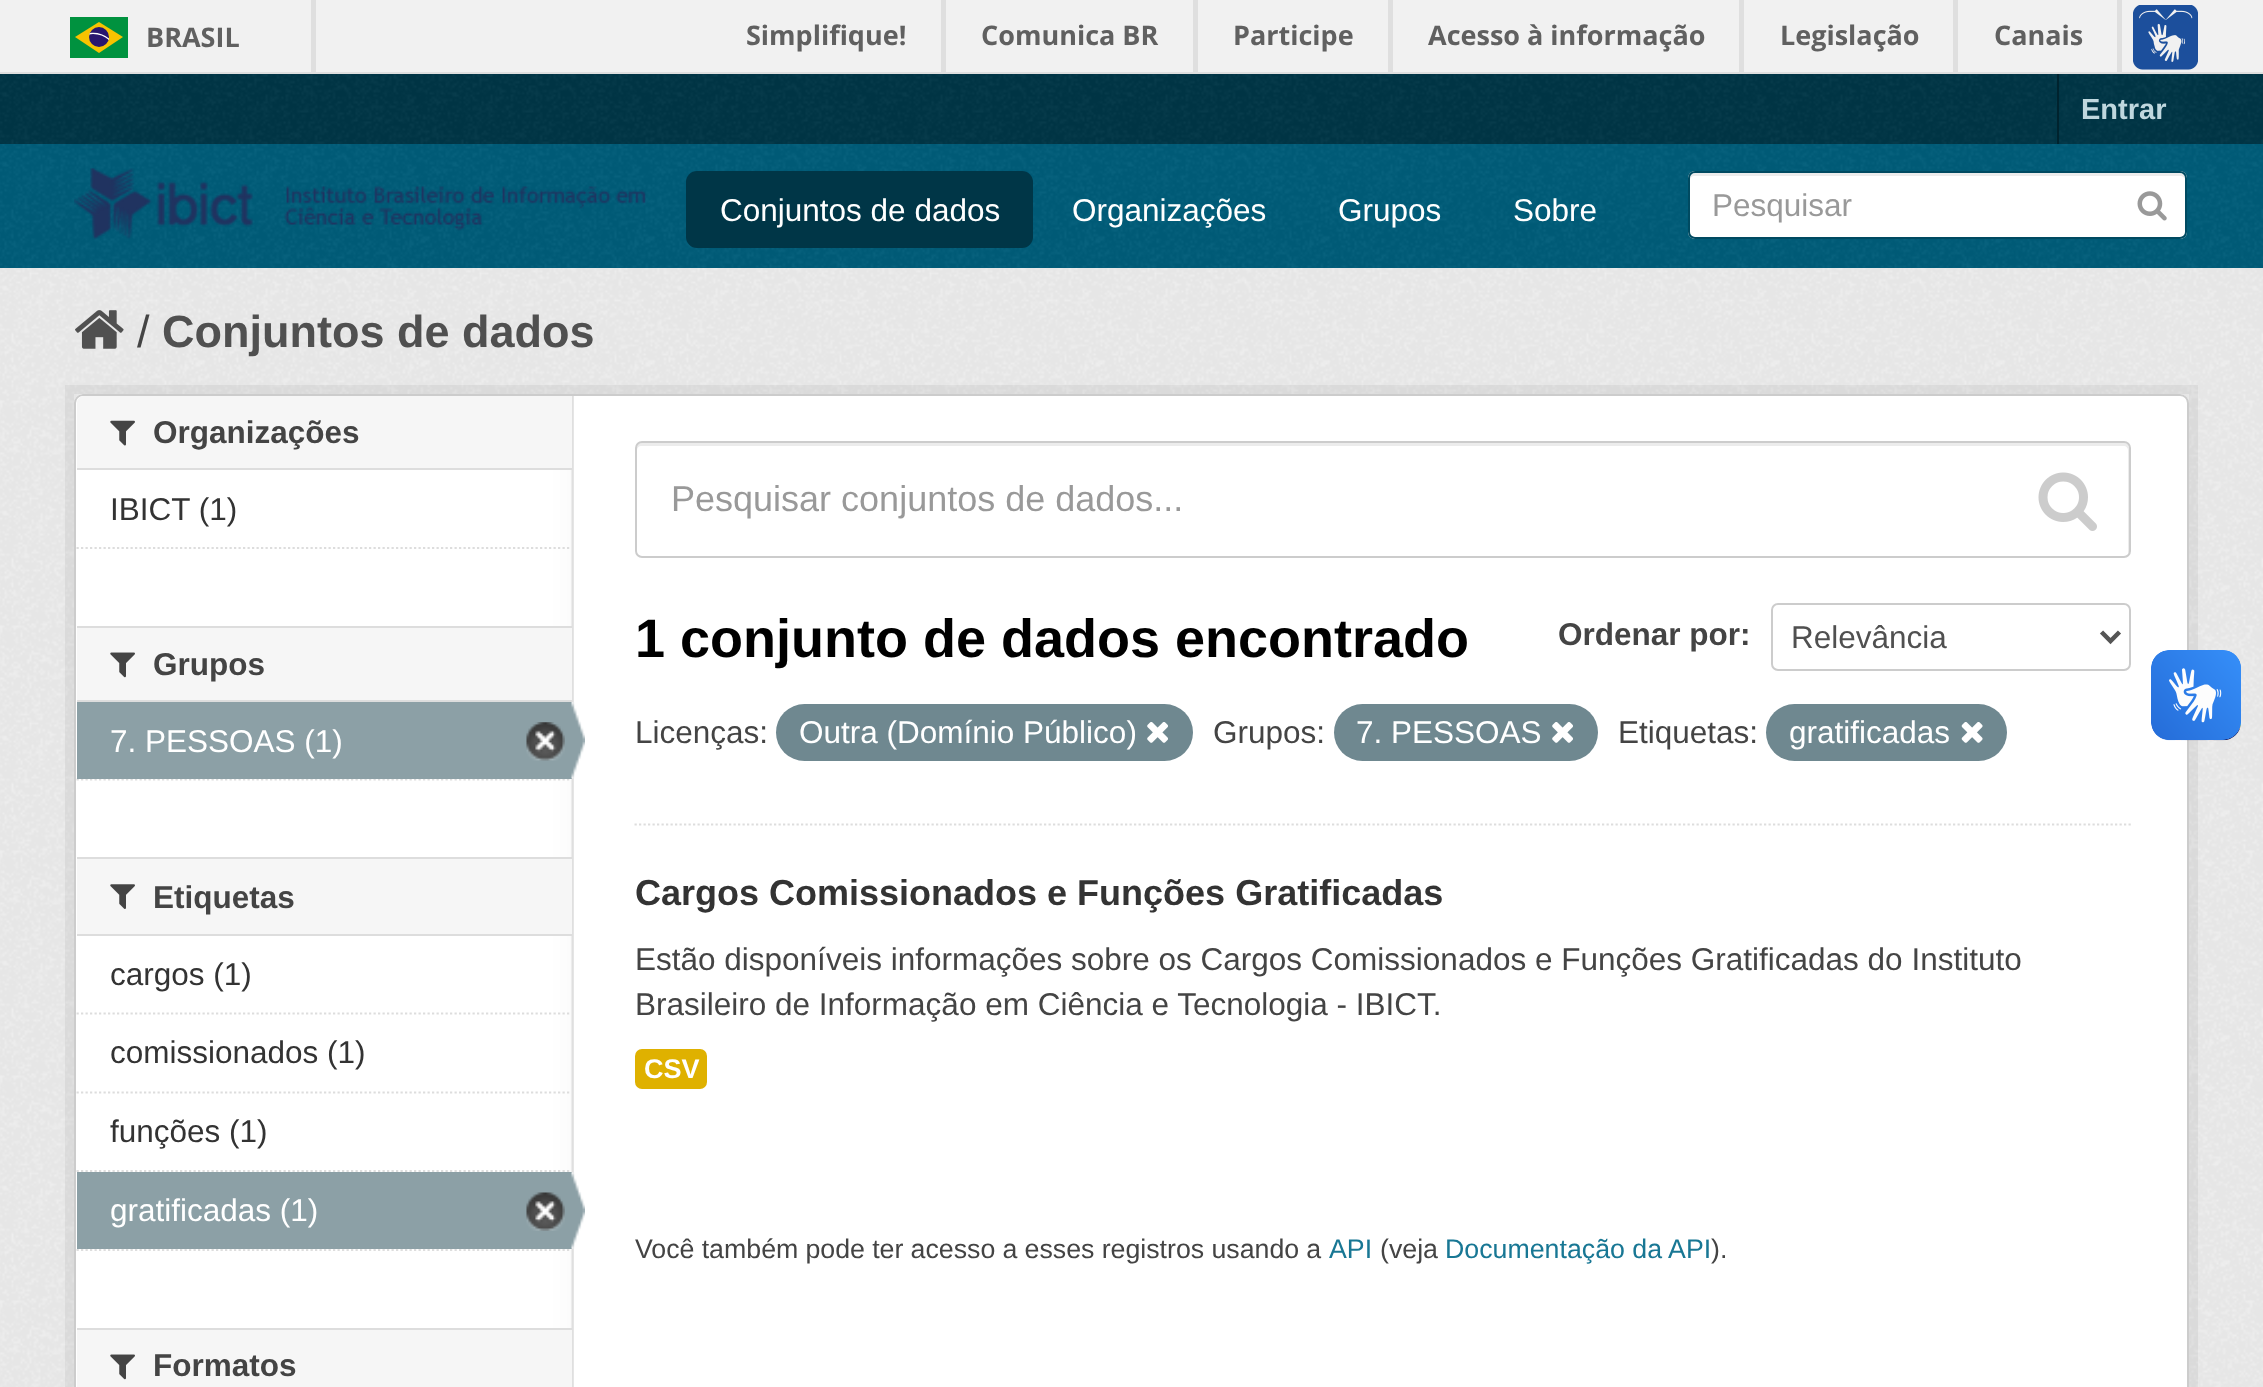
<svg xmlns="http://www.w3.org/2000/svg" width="2263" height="1387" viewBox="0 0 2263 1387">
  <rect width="100%" height="100%" fill="#f1f1f1"/>
  <path d="M0 72h2263v2H0z" fill="#dfdfdf"/>
  <path d="M311 0h5v72H311z" fill="#dfdfdf"/>
  <path d="M70 17h58v41H70z" fill="#00923f"/>
  <path d="M99 22L75 37L99 53L123 37Z" fill="#f8c300"/>
  <circle cx="99" cy="37" r="10" fill="#28166f"/>
  <path d="M93 34C99 34 104.5 36 109 40V38.5C103.5 34 96.5 32 90 33L89 34.5Z" fill="#fff"/>
  <path d="M941 0h5v72H941z" fill="#dfdfdf"/>
  <path d="M1193 0h5v72H1193z" fill="#dfdfdf"/>
  <path d="M1388 0h5v72H1388z" fill="#dfdfdf"/>
  <path d="M1739 0h5v72H1739z" fill="#dfdfdf"/>
  <path d="M1953 0h5v72H1953z" fill="#dfdfdf"/>
  <path d="M2117 0h5v72H2117z" fill="#dfdfdf"/>
  <image x="2133" y="5" width="65" height="65" href="img/1.png"/>
  <path d="M0 74h2263v70H0z" fill="#003647"/>
  <image x="0" y="74" width="2263" height="70" href="img/2.png"/>
  <path d="M2057 74h2v70H2057z" fill="#00232e"/>
  <path d="M0 144h2263v124H0z" fill="#005d7a"/>
  <image x="0" y="144" width="2263" height="124" href="img/3.png"/>
  <image x="74" y="168" width="572" height="72" href="img/4.png"/>
  <rect x="686" y="171" width="347" height="77" rx="11" fill="#003647"/>
  <rect x="1688" y="171" width="499" height="68" rx="7" fill="#fff"/>
  <path d="M1694 176H2180C2183 176 2185 178 2185 180C2185 177 2184 173 2180 173H1695C1691 173 1690 177 1690 180C1690 178 1692 176 1694 176Z" fill="#ececec"/>
  <rect x="1689" y="172" width="497" height="66" rx="6" fill="none" stroke="#004a61" stroke-width="2"/>
  <image x="2137" y="191" width="30" height="30" href="img/5.png"/>
  <path d="M0 268h2263v1119H0z" fill="#eee"/>
  <image x="0" y="268" width="2263" height="1119" href="img/6.png"/>
  <image x="75" y="310" width="49" height="39" href="img/7.png"/>
  <path d="M69.5 389.5h2124v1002H69.5z" fill="none" stroke="#0000000d" stroke-width="9"/>
  <rect x="74" y="394" width="2115" height="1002" rx="9" fill="#fff"/>
  <image x="79" y="394" width="495" height="993" href="img/8.png"/>
  <rect x="75" y="395" width="2113" height="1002" rx="8" fill="none" stroke="#ccc" stroke-width="2"/>
  <path d="M84 396H572V470H77V403C77 399 80 396 84 396Z" fill="#f6f6f6"/>
  <path d="M77 468h495v2H77z" fill="#ddd"/>
  <image x="110" y="420" width="25" height="26" href="img/9.png"/>
  <path d="M76.5 548H571.5" fill="none" stroke="#ddd" stroke-width="2.2" stroke-dasharray="2.25 2.25"/>
  <path d="M77 628h495v72H77z" fill="#f6f6f6"/>
  <path d="M77 626h495v2H77z" fill="#ddd"/>
  <path d="M77 700h495v2H77z" fill="#ddd"/>
  <image x="110" y="652" width="25" height="26" href="img/10.png"/>
  <path d="M76.5 779.5H571.5" fill="none" stroke="#ddd" stroke-width="2.2" stroke-dasharray="2.25 2.25"/>
  <path d="M77 702h495v77H77z" fill="#8ca0a6"/>
  <image x="526" y="722" width="39" height="39" href="img/11.png"/>
  <image x="571" y="702" width="14" height="77" href="img/12.png"/>
  <path d="M77 859h495v75H77z" fill="#f6f6f6"/>
  <path d="M77 857h495v2H77z" fill="#ddd"/>
  <path d="M77 934h495v2H77z" fill="#ddd"/>
  <image x="110" y="884" width="25" height="25" href="img/13.png"/>
  <path d="M76.5 1013.5H571.5" fill="none" stroke="#ddd" stroke-width="2.2" stroke-dasharray="2.25 2.25"/>
  <path d="M76.5 1092.5H571.5" fill="none" stroke="#ddd" stroke-width="2.2" stroke-dasharray="2.25 2.25"/>
  <path d="M76.5 1171H571.5" fill="none" stroke="#ddd" stroke-width="2.2" stroke-dasharray="2.25 2.25"/>
  <path d="M76.5 1250H571.5" fill="none" stroke="#ddd" stroke-width="2.2" stroke-dasharray="2.25 2.25"/>
  <path d="M77 1172h495v77H77z" fill="#8ca0a6"/>
  <image x="526" y="1192" width="39" height="39" href="img/14.png"/>
  <image x="571" y="1172" width="14" height="77" href="img/15.png"/>
  <path d="M77 1330h495v57H77z" fill="#f6f6f6"/>
  <path d="M77 1328h495v2H77z" fill="#ddd"/>
  <image x="110" y="1354" width="25" height="26" href="img/10.png"/>
  <path d="M634.5 824.5H2131" fill="none" stroke="#ddd" stroke-width="2.2" stroke-dasharray="2.25 2.25"/>
  <path d="M641 446H2124C2126 446 2128 448 2128 450V554C2129 553 2129 552 2129 551V448C2129 445 2127 443 2124 443H642C639 443 637 445 637 448V450C637 448 639 446 641 446Z" fill="#ececec"/>
  <rect x="636" y="442" width="1494" height="115" rx="6" fill="none" stroke="#ccc" stroke-width="2"/>
  <image x="2038" y="472" width="59" height="59" href="img/16.png"/>
  <rect x="1772" y="604" width="358" height="66" rx="6" fill="none" stroke="#ccc" stroke-width="2"/>
  <path d="M2101.5 632L2110.5 641L2119.5 632" fill="none" stroke="#555" stroke-width="4.5"/>
  <rect x="776" y="704" width="417" height="57" rx="28.5" fill="#6f8890"/>
  <image x="1147" y="722" width="21" height="21" href="img/17.png"/>
  <rect x="1334" y="704" width="264" height="57" rx="28.5" fill="#6f8890"/>
  <image x="1552" y="722" width="21" height="21" href="img/17.png"/>
  <rect x="1766" y="704" width="241" height="57" rx="28.5" fill="#6f8890"/>
  <image x="1961" y="722" width="22" height="21" href="img/18.png"/>
  <rect x="635" y="1049" width="72" height="40" rx="7" fill="#dfb100"/>
  <image x="2151" y="650" width="90" height="91" href="img/19.png"/>
  <image x="2151" y="650" width="90" height="90" href="img/20.png"/>
  <g font-family="Open Sans" font-size="27" font-weight="bold" fill="#606060">
    <text x="146" y="47">BRASIL</text>
    <text x="746" y="45">Simplifique!</text>
    <text x="981" y="45">Comunica BR</text>
    <text x="1233" y="45">Participe</text>
    <text x="1428" y="45">Acesso à informação</text>
    <text x="1780" y="45">Legislação</text>
    <text x="1994" y="45">Canais</text>
  </g>
  <text x="2081" y="119" font-family="Liberation Sans" font-size="29" font-weight="bold" fill="#bfd7de">Entrar</text>
  <g font-family="Liberation Sans" font-size="31.5" fill="#fff">
    <text x="720" y="221">Conjuntos de dados</text>
    <text x="1072" y="221">Organizações</text>
    <text x="1338" y="221">Grupos</text>
    <text x="1513" y="221">Sobre</text>
  </g>
  <text x="1712" y="216" font-family="Liberation Sans" font-size="31.5" fill="#999">Pesquisar</text>
  <text x="137" y="347" font-family="Liberation Sans" font-size="45" fill="#444">/</text>
  <text x="162" y="347" font-family="Liberation Sans" font-size="45" font-weight="bold" fill="#505050">Conjuntos de dados</text>
  <text x="153" y="443" font-family="Liberation Sans" font-size="31.5" font-weight="bold" fill="#444">Organizações</text>
  <text x="110" y="520" font-family="Liberation Sans" font-size="31.5" fill="#333">IBICT (1)</text>
  <text x="153" y="675" font-family="Liberation Sans" font-size="31.5" font-weight="bold" fill="#444">Grupos</text>
  <text x="110" y="752" font-family="Liberation Sans" font-size="31.5" fill="#fff">7. PESSOAS (1)</text>
  <text x="153" y="908" font-family="Liberation Sans" font-size="31.5" font-weight="bold" fill="#444">Etiquetas</text>
  <g font-family="Liberation Sans" font-size="31.5" fill="#333">
    <text x="110" y="985">cargos (1)</text>
    <text x="110" y="1063">comissionados (1)</text>
    <text x="110" y="1142">funções (1)</text>
  </g>
  <text x="110" y="1221" font-family="Liberation Sans" font-size="31.5" fill="#fff">gratificadas (1)</text>
  <text x="153" y="1376" font-family="Liberation Sans" font-size="31.5" font-weight="bold" fill="#444">Formatos</text>
  <text x="671" y="511" font-family="Liberation Sans" font-size="36" fill="#999">Pesquisar conjuntos de dados...</text>
  <text x="635" y="657" font-family="Liberation Sans" font-size="54" font-weight="bold" fill="#000">1 conjunto de dados encontrado</text>
  <text x="1558" y="645" font-family="Liberation Sans" font-size="31.5" font-weight="bold" fill="#444">Ordenar por:</text>
  <text x="1791" y="648" font-family="Liberation Sans" font-size="31.5" fill="#505050">Relevância</text>
  <text x="635" y="743" font-family="Liberation Sans" font-size="31.5" fill="#444">Licenças:</text>
  <text x="799" y="743" font-family="Liberation Sans" font-size="31.5" fill="#fff">Outra (Domínio Público)</text>
  <text x="1213" y="743" font-family="Liberation Sans" font-size="31.5" fill="#444">Grupos:</text>
  <text x="1356" y="743" font-family="Liberation Sans" font-size="31.5" fill="#fff">7. PESSOAS</text>
  <text x="1618" y="743" font-family="Liberation Sans" font-size="31.5" fill="#444">Etiquetas:</text>
  <text x="1789" y="743" font-family="Liberation Sans" font-size="31.5" fill="#fff">gratificadas</text>
  <text x="635" y="905" font-family="Liberation Sans" font-size="36" font-weight="bold" fill="#333">Cargos Comissionados e Funções Gratificadas</text>
  <g font-family="Liberation Sans" font-size="31.5" fill="#444">
    <text x="635" y="970">Estão disponíveis informações sobre os Cargos Comissionados e Funções Gratificadas do Instituto</text>
    <text x="635" y="1015">Brasileiro de Informação em Ciência e Tecnologia - IBICT.</text>
  </g>
  <text x="644" y="1078" font-family="Liberation Sans" font-size="27" font-weight="bold" fill="#fff">CSV</text>
  <text x="635" y="1258" word-spacing="-0.25" font-family="Liberation Sans" font-size="26.75" fill="#444">Você também pode ter acesso a esses registros usando a</text>
  <text x="1329" y="1258" font-family="Liberation Sans" font-size="26.75" fill="#187794">API</text>
  <text x="1380" y="1258" font-family="Liberation Sans" font-size="26.75" fill="#444">(veja</text>
  <text x="1445" y="1258" font-family="Liberation Sans" font-size="26.75" fill="#187794">Documentação da API</text>
  <text x="1711" y="1258" font-family="Liberation Sans" font-size="26.75" fill="#444">).</text>
</svg>
